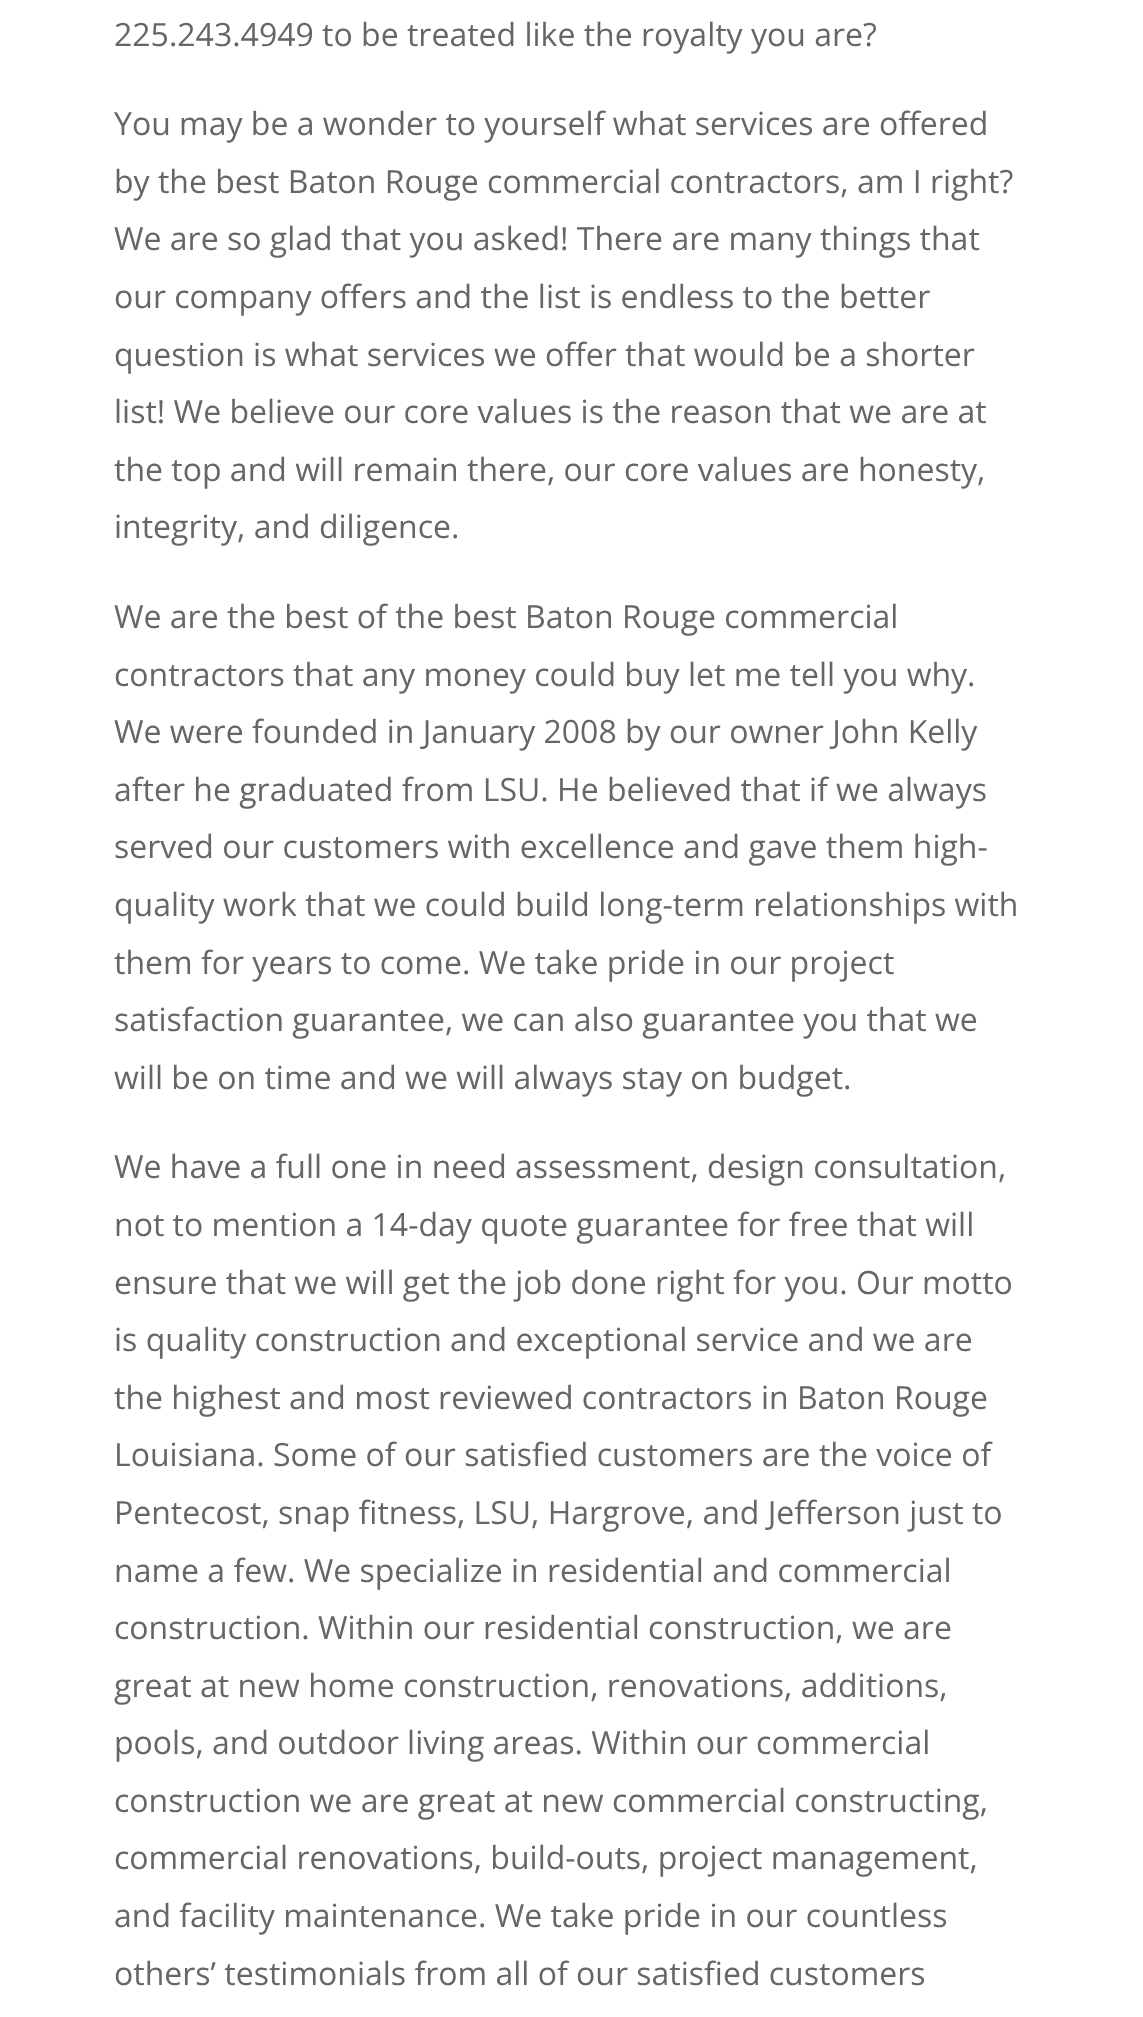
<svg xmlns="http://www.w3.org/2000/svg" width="1143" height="2017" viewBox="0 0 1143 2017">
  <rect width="100%" height="100%" fill="#fff"/>
  <g font-family="Open Sans" font-size="32" fill="#666">
    <text x="114" y="46">225.243.4949 to be treated like the royalty you are?</text>
    <text x="114" y="135">You may be a wonder to yourself what services are offered</text>
    <text x="114" y="193">by the best Baton Rouge commercial contractors, am I right?</text>
    <text x="114" y="250">We are so glad that you asked! There are many things that</text>
    <text x="114" y="308">our company offers and the list is endless to the better</text>
    <text x="114" y="366">question is what services we offer that would be a shorter</text>
    <text x="114" y="423">list! We believe our core values is the reason that we are at</text>
    <text x="114" y="481">the top and will remain there, our core values are honesty,</text>
    <text x="114" y="538">integrity, and diligence.</text>
    <text x="114" y="628">We are the best of the best Baton Rouge commercial</text>
    <text x="114" y="686">contractors that any money could buy let me tell you why.</text>
    <text x="114" y="743">We were founded in January 2008 by our owner John Kelly</text>
    <text x="114" y="801">after he graduated from LSU. He believed that if we always</text>
    <text x="114" y="858">served our customers with excellence and gave them high-</text>
    <text x="114" y="916">quality work that we could build long-term relationships with</text>
    <text x="114" y="974">them for years to come. We take pride in our project</text>
    <text x="114" y="1031">satisfaction guarantee, we can also guarantee you that we</text>
    <text x="114" y="1089">will be on time and we will always stay on budget.</text>
    <text x="114" y="1178">We have a full one in need assessment, design consultation,</text>
    <text x="114" y="1236">not to mention a 14-day quote guarantee for free that will</text>
    <text x="114" y="1294">ensure that we will get the job done right for you. Our motto</text>
    <text x="114" y="1351">is quality construction and exceptional service and we are</text>
    <text x="114" y="1409">the highest and most reviewed contractors in Baton Rouge</text>
    <text x="114" y="1466">Louisiana. Some of our satisfied customers are the voice of</text>
    <text x="114" y="1524">Pentecost, snap fitness, LSU, Hargrove, and Jefferson just to</text>
    <text x="114" y="1582">name a few. We specialize in residential and commercial</text>
    <text x="114" y="1639">construction. Within our residential construction, we are</text>
    <text x="114" y="1697">great at new home construction, renovations, additions,</text>
    <text x="114" y="1754">pools, and outdoor living areas. Within our commercial</text>
    <text x="114" y="1812">construction we are great at new commercial constructing,</text>
    <text x="114" y="1869">commercial renovations, build-outs, project management,</text>
    <text x="114" y="1927">and facility maintenance. We take pride in our countless</text>
    <text x="114" y="1985">others’ testimonials from all of our satisfied customers</text>
  </g>
</svg>
